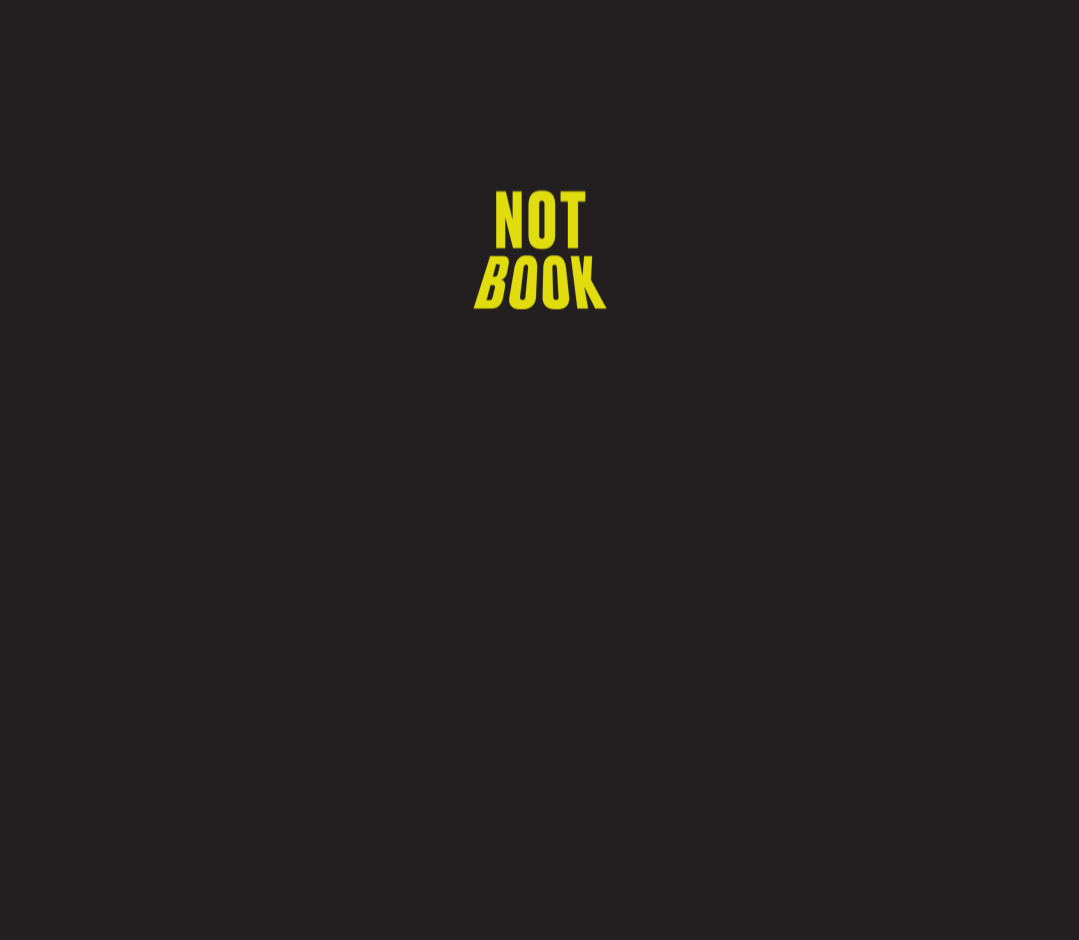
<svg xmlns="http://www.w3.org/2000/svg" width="1079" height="940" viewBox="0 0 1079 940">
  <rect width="100%" height="100%" fill="#231f20"/>
  <image x="473" y="189" width="134" height="121" href="img/1.png"/>
</svg>
